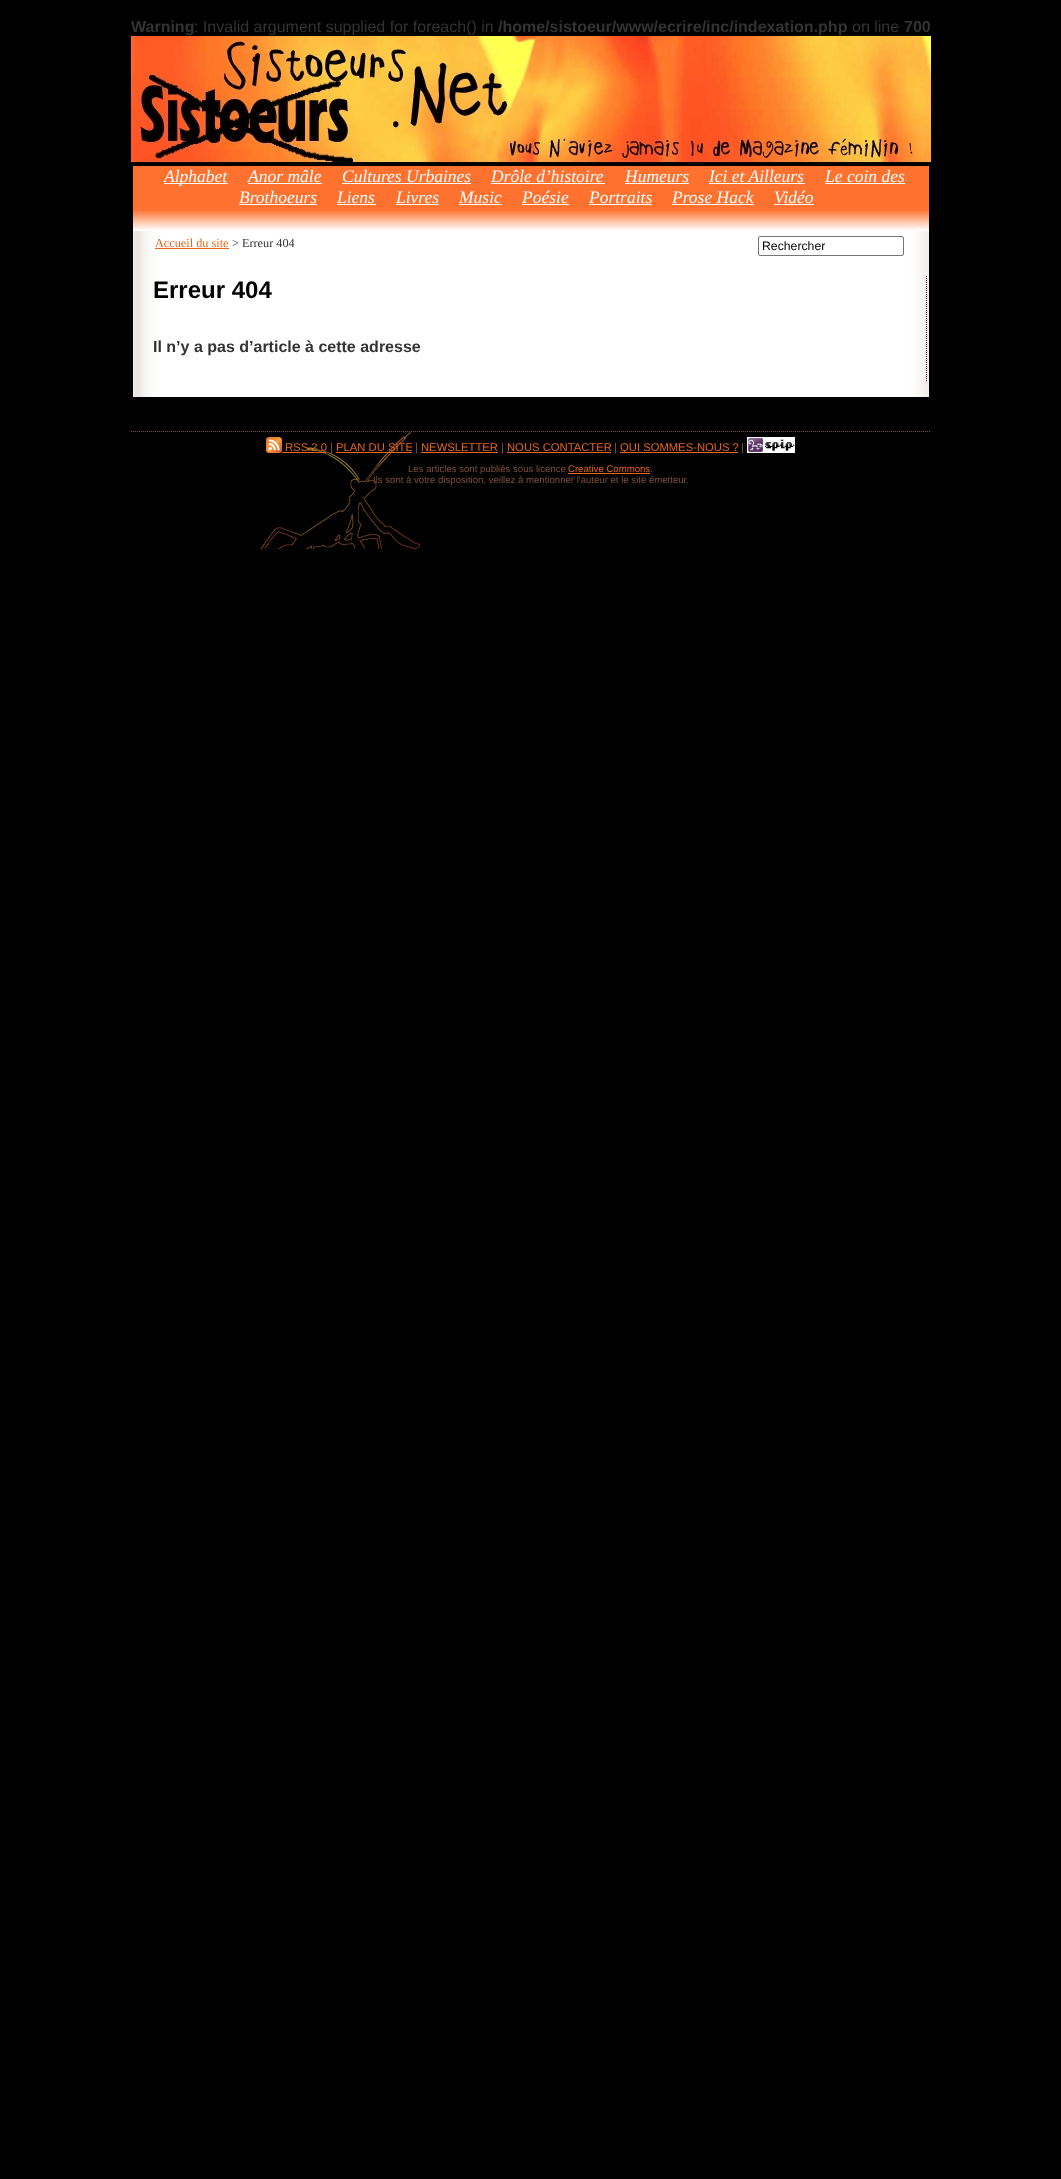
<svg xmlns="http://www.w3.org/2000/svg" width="1061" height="2179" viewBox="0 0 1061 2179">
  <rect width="100%" height="100%" fill="#000"/>
  <image x="131" y="36" width="800" height="127" href="img/1.png"/>
  <image x="133" y="166" width="796" height="65" href="img/2.png"/>
  <path d="M164 183h64v1H164z" fill="#fff"/>
  <path d="M248 183h74v1H248z" fill="#fff"/>
  <path d="M342 183h129v1H342z" fill="#fff"/>
  <path d="M491 183h114v1H491z" fill="#fff"/>
  <path d="M625 183h64v1H625z" fill="#fff"/>
  <path d="M709 183h96v1H709z" fill="#fff"/>
  <path d="M825 183h80v1H825z" fill="#fff"/>
  <path d="M239 204h78v1H239z" fill="#fff"/>
  <path d="M337 204h39v1H337z" fill="#fff"/>
  <path d="M396 204h43v1H396z" fill="#fff"/>
  <path d="M459 204h43v1H459z" fill="#fff"/>
  <path d="M522 204h47v1H522z" fill="#fff"/>
  <path d="M589 204h63v1H589z" fill="#fff"/>
  <path d="M672 204h82v1H672z" fill="#fff"/>
  <path d="M774 204h40v1H774z" fill="#fff"/>
  <image x="133" y="231" width="796" height="166" href="img/3.png"/>
  <rect x="758.5" y="236.5" width="145" height="19" rx="1.5" fill="none" stroke="#767676"/>
  <path d="M155 248h74v1H155z" fill="#e86519"/>
  <path d="M926.5 276V382" fill="none" stroke="#6e003a" stroke-dasharray="1 1"/>
  <image x="258" y="432" width="162" height="117" href="img/4.png"/>
  <path d="M131 431.5H931" fill="none" stroke="#7e503a" stroke-dasharray="1 1"/>
  <image x="266" y="437" width="16" height="16" href="img/5.png"/>
  <path d="M282 452h44v1H282z" fill="#e86519"/>
  <path d="M336 452h76v1H336z" fill="#e86519"/>
  <path d="M421 452h77v1H421z" fill="#e86519"/>
  <path d="M507 452h104v1H507z" fill="#e86519"/>
  <path d="M620 452h118v1H620z" fill="#e86519"/>
  <image x="747" y="437" width="48" height="16" href="img/6.png"/>
  <path d="M568 473h82v1H568z" fill="#e86519"/>
  <text x="131" y="32" font-family="Liberation Sans" font-size="16" font-weight="bold" fill="#333">Warning</text>
  <text x="194" y="32" font-family="Liberation Sans" font-size="16" fill="#333">: Invalid argument supplied for foreach() in</text>
  <text x="498" y="32" font-family="Liberation Sans" font-size="16" font-weight="bold" fill="#333">/home/sistoeur/www/ecrire/inc/indexation.php</text>
  <text x="852" y="32" font-family="Liberation Sans" font-size="16" fill="#333">on line</text>
  <text x="904" y="32" font-family="Liberation Sans" font-size="16" font-weight="bold" fill="#333">700</text>
  <g font-family="Liberation Serif" font-size="17.5" font-style="italic" fill="#fff">
    <text x="164" y="182">Alphabet</text>
    <text x="248" y="182">Anor mâle</text>
    <text x="342" y="182">Cultures Urbaines</text>
    <text x="491" y="182">Drôle d’histoire</text>
    <text x="625" y="182">Humeurs</text>
    <text x="709" y="182">Ici et Ailleurs</text>
    <text x="825" y="182">Le coin des</text>
    <text x="239" y="203">Brothoeurs</text>
    <text x="337" y="203">Liens</text>
    <text x="396" y="203">Livres</text>
    <text x="459" y="203">Music</text>
    <text x="522" y="203">Poésie</text>
    <text x="589" y="203">Portraits</text>
    <text x="672" y="203">Prose Hack</text>
    <text x="774" y="203">Vidéo</text>
  </g>
  <text x="762" y="250" font-family="Liberation Sans" font-size="12.25" fill="#000">Rechercher</text>
  <text x="155" y="247" font-family="Liberation Serif" font-size="12.25" fill="#e86519">Accueil du site</text>
  <text x="232" y="247" font-family="Liberation Serif" font-size="12.25" fill="#333">&gt; Erreur 404</text>
  <text x="153" y="298" font-family="Liberation Sans" font-size="24" font-weight="bold" fill="#000">Erreur 404</text>
  <text x="153" y="352" font-family="Liberation Sans" font-size="16" font-weight="bold" fill="#333">Il n’y a pas d’article à cette adresse</text>
  <text x="285" y="451" font-family="Liberation Sans" font-size="11.25" fill="#e86519">RSS 2.0</text>
  <text x="330" y="451" font-family="Liberation Sans" font-size="11.25" fill="#7e503a">|</text>
  <text x="336" y="451" font-family="Liberation Sans" font-size="11.25" fill="#e86519">PLAN DU SITE</text>
  <text x="415" y="451" font-family="Liberation Sans" font-size="11.25" fill="#7e503a">|</text>
  <text x="421" y="451" font-family="Liberation Sans" font-size="11.25" fill="#e86519">NEWSLETTER</text>
  <text x="501" y="451" font-family="Liberation Sans" font-size="11.25" fill="#7e503a">|</text>
  <text x="507" y="451" font-family="Liberation Sans" font-size="11.25" fill="#e86519">NOUS CONTACTER</text>
  <text x="614" y="451" font-family="Liberation Sans" font-size="11.25" fill="#7e503a">|</text>
  <text x="620" y="451" font-family="Liberation Sans" font-size="11.25" fill="#e86519">QUI SOMMES-NOUS ?</text>
  <text x="741" y="451" font-family="Liberation Sans" font-size="11.25" fill="#7e503a">|</text>
  <text x="408" y="472" font-family="Liberation Sans" font-size="9.6" fill="#7e503a">Les articles sont publiés sous licence</text>
  <text x="568" y="472" font-family="Liberation Sans" font-size="9.6" fill="#e86519">Creative Commons</text>
  <g font-family="Liberation Sans" font-size="9.6" fill="#7e503a">
    <text x="650" y="472">.</text>
    <text x="373" y="483">Ils sont à votre disposition, veillez à mentionner l'auteur et le site émetteur.</text>
  </g>
</svg>
